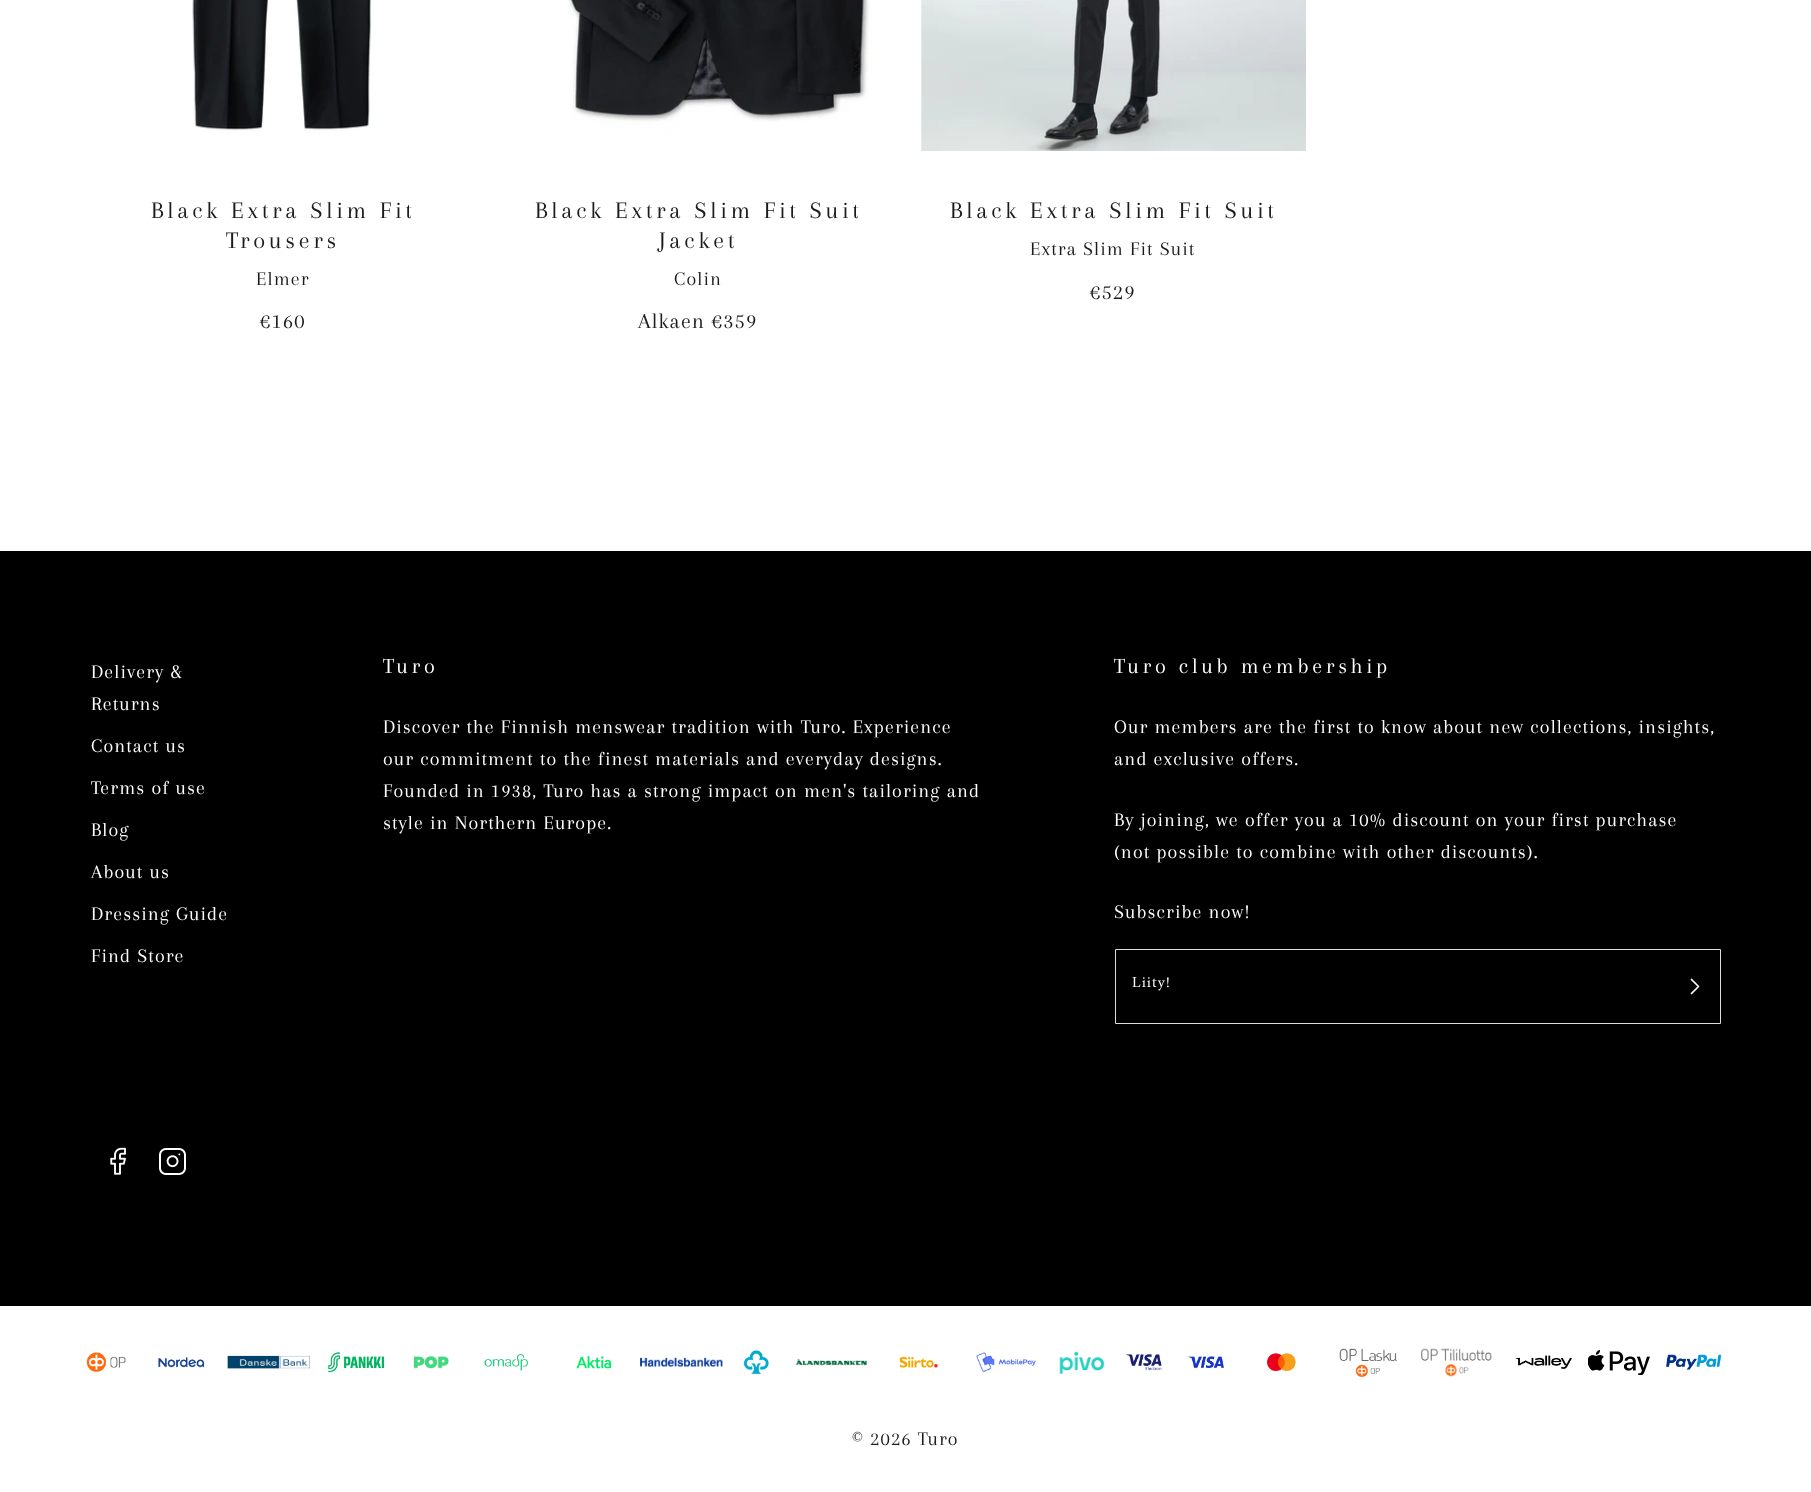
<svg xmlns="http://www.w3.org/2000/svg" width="1811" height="1492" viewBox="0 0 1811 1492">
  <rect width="100%" height="100%" fill="#fff"/>
  <image x="90" y="0" width="385" height="151" href="img/1.png"/>
  <image x="505" y="0" width="386" height="151" href="img/2.png"/>
  <path d="M921 0h1v151H921z" fill="#f1f1f1"/>
  <image x="921" y="0" width="385" height="151" href="img/3.png"/>
  <path d="M0 551h1811v755H0z" fill="#000"/>
  <path d="M1115.5 949.5h605v74H1115.5z" fill="none" stroke="#ddd"/>
  <path d="M1691.5 993.5L1698.5 986.5L1691.5 979.5" fill="none" stroke="#fff" stroke-width="1.7" stroke-linecap="round" stroke-linejoin="round"/>
  <image x="110" y="1147" width="16" height="28" href="img/4.png"/>
  <image x="159" y="1148" width="27" height="27" href="img/5.png"/>
  <image x="86" y="1352" width="40" height="20" href="img/6.png"/>
  <image x="158" y="1357" width="47" height="11" href="img/7.png"/>
  <image x="227" y="1355" width="83" height="14" href="img/8.png"/>
  <image x="328" y="1352" width="57" height="21" href="img/9.png"/>
  <image x="413" y="1356" width="36" height="13" href="img/10.png"/>
  <image x="484" y="1353" width="44" height="18" href="img/11.png"/>
  <image x="576" y="1356" width="35" height="13" href="img/12.png"/>
  <image x="640" y="1357" width="83" height="10" href="img/13.png"/>
  <image x="743" y="1350" width="26" height="24" href="img/14.png"/>
  <image x="795" y="1359" width="72" height="7" href="img/15.png"/>
  <image x="899" y="1356" width="39" height="12" href="img/16.png"/>
  <image x="976" y="1352" width="60" height="20" href="img/17.png"/>
  <image x="1059" y="1351" width="46" height="23" href="img/18.png"/>
  <image x="1126" y="1354" width="36" height="17" href="img/19.png"/>
  <image x="1188" y="1356" width="36" height="13" href="img/20.png"/>
  <image x="1267" y="1353" width="29" height="18" href="img/21.png"/>
  <image x="1339" y="1348" width="58" height="29" href="img/22.png"/>
  <image x="1421" y="1348" width="71" height="29" href="img/23.png"/>
  <image x="1515" y="1355" width="57" height="14" href="img/24.png"/>
  <image x="1588" y="1350" width="62" height="25" href="img/25.png"/>
  <image x="1665" y="1354" width="57" height="16" href="img/26.png"/>
  <g font-family="Arapey" font-size="24.5" letter-spacing="3.75" fill="#1c1c1c">
    <text x="151" y="218">Black Extra Slim Fit</text>
    <text x="226" y="248">Trousers</text>
  </g>
  <text x="256" y="285" font-family="Arapey" font-size="20" letter-spacing="1.12" fill="#1c1c1c">Elmer</text>
  <text x="260" y="328" font-family="Arapey" font-size="22.25" letter-spacing="1.1" fill="#1c1c1c">€160</text>
  <g font-family="Arapey" font-size="24.5" letter-spacing="3.75" fill="#1c1c1c">
    <text x="535" y="218">Black Extra Slim Fit Suit</text>
    <text x="659" y="248">Jacket</text>
  </g>
  <text x="674" y="285" font-family="Arapey" font-size="20" letter-spacing="1.12" fill="#1c1c1c">Colin</text>
  <text x="638" y="328" font-family="Arapey" font-size="22.25" letter-spacing="1.1" fill="#1c1c1c">Alkaen €359</text>
  <text x="950" y="218" font-family="Arapey" font-size="24.5" letter-spacing="3.75" fill="#1c1c1c">Black Extra Slim Fit Suit</text>
  <text x="1030" y="255" font-family="Arapey" font-size="20" letter-spacing="1.12" fill="#1c1c1c">Extra Slim Fit Suit</text>
  <text x="1090" y="299" font-family="Arapey" font-size="22.25" letter-spacing="1.1" fill="#1c1c1c">€529</text>
  <g font-family="Arapey" font-size="20" letter-spacing="1.12" fill="#fff">
    <text x="91" y="678">Delivery &amp;</text>
    <text x="91" y="710">Returns</text>
    <text x="91" y="752">Contact us</text>
    <text x="91" y="794">Terms of use</text>
    <text x="91" y="836">Blog</text>
    <text x="91" y="878">About us</text>
    <text x="91" y="920">Dressing Guide</text>
    <text x="91" y="962">Find Store</text>
  </g>
  <text x="383" y="673" font-family="Arapey" font-size="22.25" letter-spacing="3.75" fill="#fff">Turo</text>
  <g font-family="Arapey" font-size="20" letter-spacing="1.12" fill="#fff">
    <text x="383" y="733">Discover the Finnish menswear tradition with Turo. Experience</text>
    <text x="383" y="765">our commitment to the finest materials and everyday designs.</text>
    <text x="383" y="797">Founded in 1938, Turo has a strong impact on men's tailoring and</text>
    <text x="383" y="829">style in Northern Europe.</text>
  </g>
  <text x="1114" y="673" font-family="Arapey" font-size="22.25" letter-spacing="3.75" fill="#fff">Turo club membership</text>
  <g font-family="Arapey" font-size="20" letter-spacing="1.12" fill="#fff">
    <text x="1114" y="733">Our members are the first to know about new collections, insights,</text>
    <text x="1114" y="765">and exclusive offers.</text>
    <text x="1114" y="826">By joining, we offer you a 10% discount on your first purchase</text>
    <text x="1114" y="858">(not possible to combine with other discounts).</text>
    <text x="1114" y="918">Subscribe now!</text>
  </g>
  <text x="1132" y="987" font-family="Amiri" font-size="15.5" letter-spacing="1.12" fill="#fff">Liity!</text>
  <text x="852" y="1445" font-family="Arapey" font-size="20" letter-spacing="1.12" fill="#1c1c1c">© 2026 Turo</text>
</svg>
